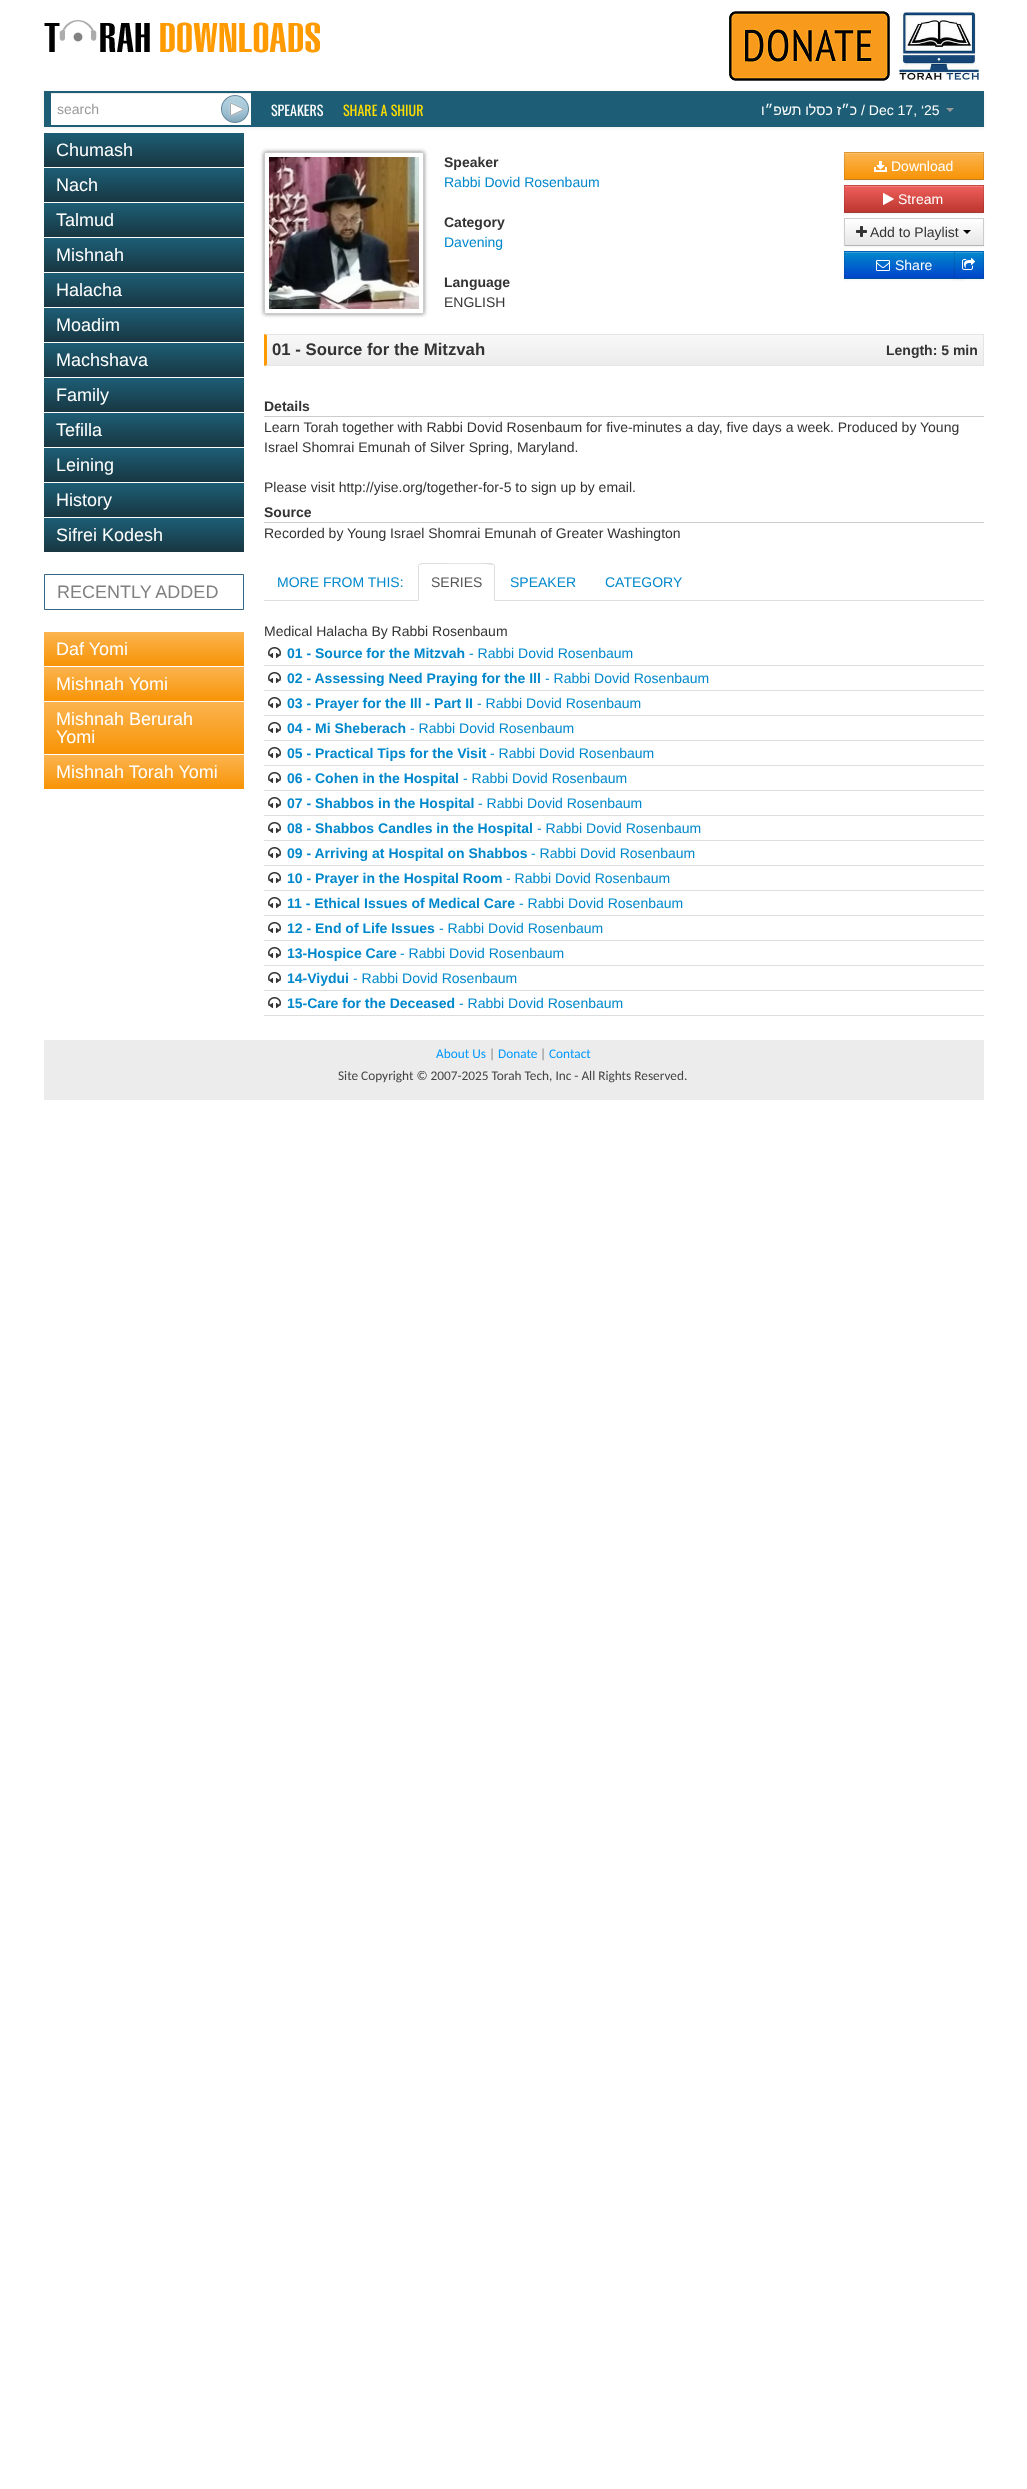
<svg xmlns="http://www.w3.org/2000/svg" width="1027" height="2489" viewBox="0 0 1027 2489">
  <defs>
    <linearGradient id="g1" gradientUnits="userSpaceOnUse" x1="144" y1="133" x2="144" y2="167"><stop offset="0" stop-color="#1d5e76"/><stop offset="0.99" stop-color="#183742"/></linearGradient>
    <linearGradient id="g2" gradientUnits="userSpaceOnUse" x1="144" y1="168" x2="144" y2="202"><stop offset="0" stop-color="#1d5e76"/><stop offset="0.99" stop-color="#183742"/></linearGradient>
    <linearGradient id="g3" gradientUnits="userSpaceOnUse" x1="144" y1="203" x2="144" y2="237"><stop offset="0" stop-color="#1d5e76"/><stop offset="0.99" stop-color="#183742"/></linearGradient>
    <linearGradient id="g4" gradientUnits="userSpaceOnUse" x1="144" y1="238" x2="144" y2="272"><stop offset="0" stop-color="#1d5e76"/><stop offset="0.99" stop-color="#183742"/></linearGradient>
    <linearGradient id="g5" gradientUnits="userSpaceOnUse" x1="144" y1="273" x2="144" y2="307"><stop offset="0" stop-color="#1d5e76"/><stop offset="0.99" stop-color="#183742"/></linearGradient>
    <linearGradient id="g6" gradientUnits="userSpaceOnUse" x1="144" y1="308" x2="144" y2="342"><stop offset="0" stop-color="#1d5e76"/><stop offset="0.99" stop-color="#183742"/></linearGradient>
    <linearGradient id="g7" gradientUnits="userSpaceOnUse" x1="144" y1="343" x2="144" y2="377"><stop offset="0" stop-color="#1d5e76"/><stop offset="0.99" stop-color="#183742"/></linearGradient>
    <linearGradient id="g8" gradientUnits="userSpaceOnUse" x1="144" y1="378" x2="144" y2="412"><stop offset="0" stop-color="#1d5e76"/><stop offset="0.99" stop-color="#183742"/></linearGradient>
    <linearGradient id="g9" gradientUnits="userSpaceOnUse" x1="144" y1="413" x2="144" y2="447"><stop offset="0" stop-color="#1d5e76"/><stop offset="0.99" stop-color="#183742"/></linearGradient>
    <linearGradient id="g10" gradientUnits="userSpaceOnUse" x1="144" y1="448" x2="144" y2="482"><stop offset="0" stop-color="#1d5e76"/><stop offset="0.99" stop-color="#183742"/></linearGradient>
    <linearGradient id="g11" gradientUnits="userSpaceOnUse" x1="144" y1="483" x2="144" y2="517"><stop offset="0" stop-color="#1d5e76"/><stop offset="0.99" stop-color="#183742"/></linearGradient>
    <linearGradient id="g12" gradientUnits="userSpaceOnUse" x1="144" y1="518" x2="144" y2="552"><stop offset="0" stop-color="#1d5e76"/><stop offset="0.99" stop-color="#183742"/></linearGradient>
    <linearGradient id="g13" gradientUnits="userSpaceOnUse" x1="144" y1="632" x2="144" y2="666"><stop offset="0" stop-color="#fbb450"/><stop offset="0.99" stop-color="#f89406"/></linearGradient>
    <linearGradient id="g14" gradientUnits="userSpaceOnUse" x1="144" y1="667" x2="144" y2="701"><stop offset="0" stop-color="#fbb450"/><stop offset="0.99" stop-color="#f89406"/></linearGradient>
    <linearGradient id="g15" gradientUnits="userSpaceOnUse" x1="144" y1="702" x2="144" y2="754"><stop offset="0" stop-color="#fbb450"/><stop offset="0.99" stop-color="#f89406"/></linearGradient>
    <linearGradient id="g16" gradientUnits="userSpaceOnUse" x1="144" y1="755" x2="144" y2="789"><stop offset="0" stop-color="#fbb450"/><stop offset="0.99" stop-color="#f89406"/></linearGradient>
    <clipPath id="clip1"><path d="M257 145H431V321H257ZM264 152H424V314H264Z" clip-rule="evenodd"/></clipPath>
    <linearGradient id="g17" gradientUnits="userSpaceOnUse" x1="914" y1="153" x2="914" y2="179"><stop offset="0" stop-color="#fbb450"/><stop offset="1" stop-color="#f89406"/></linearGradient>
    <linearGradient id="g18" gradientUnits="userSpaceOnUse" x1="914" y1="186" x2="914" y2="212"><stop offset="0" stop-color="#ee5f5b"/><stop offset="1" stop-color="#bd362f"/></linearGradient>
    <linearGradient id="g19" gradientUnits="userSpaceOnUse" x1="914" y1="219" x2="914" y2="245"><stop offset="0" stop-color="#fff"/><stop offset="1" stop-color="#e6e6e6"/></linearGradient>
    <linearGradient id="g20" gradientUnits="userSpaceOnUse" x1="904" y1="252" x2="904" y2="278"><stop offset="0" stop-color="#08c"/><stop offset="1" stop-color="#04c"/></linearGradient>
    <linearGradient id="g21" gradientUnits="userSpaceOnUse" x1="969" y1="252" x2="969" y2="278"><stop offset="0" stop-color="#08c"/><stop offset="1" stop-color="#04c"/></linearGradient>
    <linearGradient id="g22" gradientUnits="userSpaceOnUse" x1="625" y1="335" x2="625" y2="365"><stop offset="0" stop-color="#f8f8f8"/><stop offset="1" stop-color="#ececec"/></linearGradient>
  </defs>
  <rect width="100%" height="100%" fill="#fff"/>
  <image x="44" y="20" width="276" height="33" href="img/1.png"/>
  <image x="729" y="11" width="161" height="70" href="img/2.png"/>
  <image x="899" y="12" width="80" height="68" href="img/3.png"/>
  <path d="M44 92h940v36H44z" fill="#00000012" filter="blur(2px)"/>
  <path d="M44 91h940v36H44z" fill="#1d5e76"/>
  <path d="M51 94h200v31H51z" fill="#fff"/>
  <path d="M51 93h200v1H51z" fill="#ececec"/>
  <image x="221" y="95" width="28" height="28" href="img/4.png"/>
  <path d="M946 108H954L950 112Z" fill="#999"/>
  <path d="M44 133h200v34H44z" fill="url(#g1)"/>
  <path d="M44 168h200v34H44z" fill="url(#g2)"/>
  <path d="M44 203h200v34H44z" fill="url(#g3)"/>
  <path d="M44 238h200v34H44z" fill="url(#g4)"/>
  <path d="M44 273h200v34H44z" fill="url(#g5)"/>
  <path d="M44 308h200v34H44z" fill="url(#g6)"/>
  <path d="M44 343h200v34H44z" fill="url(#g7)"/>
  <path d="M44 378h200v34H44z" fill="url(#g8)"/>
  <path d="M44 413h200v34H44z" fill="url(#g9)"/>
  <path d="M44 448h200v34H44z" fill="url(#g10)"/>
  <path d="M44 483h200v34H44z" fill="url(#g11)"/>
  <path d="M44 518h200v34H44z" fill="url(#g12)"/>
  <path d="M44.5 574.5h199v35H44.5z" fill="none" stroke="#2d6987"/>
  <path d="M44 632h200v34H44z" fill="url(#g13)"/>
  <path d="M44 667h200v34H44z" fill="url(#g14)"/>
  <path d="M44 702h200v52H44z" fill="url(#g15)"/>
  <path d="M44 755h200v34H44z" fill="url(#g16)"/>
  <g clip-path="url(#clip1)">
    <path d="M264 152h160v162H264z" fill="#00000080" filter="blur(2px)"/>
  </g>
  <path d="M264.5 152.5h159v161H264.5z" fill="none" stroke="#cbcbcb"/>
  <image x="269" y="157" width="150" height="152" href="img/5.png"/>
  <path d="M844 153h140v28H844z" fill="#0000000d" filter="blur(1px)"/>
  <path d="M844 152h140v28H844z" fill="#faa732"/>
  <path d="M844 153h140v26H844z" fill="url(#g17)"/>
  <path d="M845 153h138v1H845z" fill="#fcc272"/>
  <path d="M844 152H984L983 153H845Z" fill="#e1962d"/>
  <path d="M984 152V180L983 179V153Z" fill="#0000001a"/>
  <path d="M984 180H844L845 179H983Z" fill="#00000040"/>
  <path d="M844 180V152L845 153V179Z" fill="#0000001a"/>
  <image x="874" y="161" width="13" height="11" href="img/6.png"/>
  <path d="M844 186h140v28H844z" fill="#0000000d" filter="blur(1px)"/>
  <path d="M844 185h140v28H844z" fill="#da4f49"/>
  <path d="M844 186h140v26H844z" fill="url(#g18)"/>
  <path d="M845 186h138v1H845z" fill="#f17e7b"/>
  <path d="M844 185H984L983 186H845Z" fill="#c44742"/>
  <path d="M984 185V213L983 212V186Z" fill="#0000001a"/>
  <path d="M984 213H844L845 212H983Z" fill="#00000040"/>
  <path d="M844 213V185L845 186V212Z" fill="#0000001a"/>
  <image x="883" y="193" width="11" height="12" href="img/7.png"/>
  <path d="M844 219h140v28H844z" fill="#0000000d" filter="blur(1px)"/>
  <path d="M845 219h138v26H845z" fill="url(#g19)"/>
  <path d="M844 218h140v1H844z" fill="#ccc"/>
  <path d="M983 218h1v28H983z" fill="#ccc"/>
  <path d="M844 245h140v1H844z" fill="#b3b3b3"/>
  <path d="M844 218h1v28H844z" fill="#ccc"/>
  <image x="856" y="226" width="11" height="11" href="img/8.png"/>
  <path d="M963 230H971L967 234Z" fill="#000"/>
  <path d="M844 252h120v28H844z" fill="#0000000d" filter="blur(1px)"/>
  <path d="M844 251h110v28H844z" fill="#006dcc"/>
  <path d="M844 252h110v26H844z" fill="url(#g20)"/>
  <path d="M845 252h109v1H845z" fill="#339fd6"/>
  <path d="M844 251H964L963 252H845Z" fill="#0062b8"/>
  <path d="M964 279H844L845 278H963Z" fill="#00000040"/>
  <path d="M844 279V251L845 252V278Z" fill="#0000001a"/>
  <image x="876" y="260" width="14" height="11" href="img/9.png"/>
  <path d="M954 252h30v28H954z" fill="#0000000d" filter="blur(1px)"/>
  <path d="M954 251h30v28H954z" fill="#006dcc"/>
  <path d="M954 252h30v26H954z" fill="url(#g21)"/>
  <path d="M955 252h28v1H955z" fill="#339fd6"/>
  <path d="M954 251H984L983 252H955Z" fill="#0062b8"/>
  <path d="M984 251V279L983 278V252Z" fill="#0000001a"/>
  <path d="M984 279H954L955 278H983Z" fill="#00000040"/>
  <path d="M954 279V251L955 252V278Z" fill="#0000001a"/>
  <image x="962" y="258" width="13" height="12" href="img/10.png"/>
  <path d="M267 335h716v30H267z" fill="url(#g22)"/>
  <path d="M264 334H984L983 335H267Z" fill="#e5e5e5"/>
  <path d="M983 334h1v32H983z" fill="#e5e5e5"/>
  <path d="M984 366H264L267 365H983Z" fill="#e5e5e5"/>
  <path d="M264 366V334L267 335V365Z" fill="#ff9b00"/>
  <path d="M264 416h720v1H264z" fill="#ccc"/>
  <path d="M264 522h720v1H264z" fill="#ccc"/>
  <path d="M264 600h720v1H264z" fill="#ddd"/>
  <path d="M422 563H491C493 563 495 565 495 567V601H418V567C418 565 420 563 422 563Z" fill="#fff"/>
  <path d="M422 563L419 564L420 565L422 564H434C440 564 491 563 493 565L494 564L491 563Z" fill="#ddd"/>
  <path d="M495 601V567C495 566 494.5 565 494 564L493 565C494 565 494 566 494 567V600Z" fill="#ddd"/>
  <path d="M418 601L419 600V567C419 566 419 565 420 565L419 564C418.5 565 418 566 418 567Z" fill="#ddd"/>
  <path d="M264 665h720v1H264z" fill="#ddd"/>
  <image x="268" y="647" width="13" height="11" href="img/11.png"/>
  <path d="M264 690h720v1H264z" fill="#ddd"/>
  <image x="268" y="672" width="13" height="11" href="img/11.png"/>
  <path d="M264 715h720v1H264z" fill="#ddd"/>
  <image x="268" y="697" width="13" height="11" href="img/11.png"/>
  <path d="M264 740h720v1H264z" fill="#ddd"/>
  <image x="268" y="722" width="13" height="11" href="img/11.png"/>
  <path d="M264 765h720v1H264z" fill="#ddd"/>
  <image x="268" y="747" width="13" height="11" href="img/11.png"/>
  <path d="M264 790h720v1H264z" fill="#ddd"/>
  <image x="268" y="772" width="13" height="11" href="img/11.png"/>
  <path d="M264 815h720v1H264z" fill="#ddd"/>
  <image x="268" y="797" width="13" height="11" href="img/11.png"/>
  <path d="M264 840h720v1H264z" fill="#ddd"/>
  <image x="268" y="822" width="13" height="11" href="img/11.png"/>
  <path d="M264 865h720v1H264z" fill="#ddd"/>
  <image x="268" y="847" width="13" height="11" href="img/11.png"/>
  <path d="M264 890h720v1H264z" fill="#ddd"/>
  <image x="268" y="872" width="13" height="11" href="img/11.png"/>
  <path d="M264 915h720v1H264z" fill="#ddd"/>
  <image x="268" y="897" width="13" height="11" href="img/11.png"/>
  <path d="M264 940h720v1H264z" fill="#ddd"/>
  <image x="268" y="922" width="13" height="11" href="img/11.png"/>
  <path d="M264 965h720v1H264z" fill="#ddd"/>
  <image x="268" y="947" width="13" height="11" href="img/11.png"/>
  <path d="M264 990h720v1H264z" fill="#ddd"/>
  <image x="268" y="972" width="13" height="11" href="img/11.png"/>
  <path d="M264 1015h720v1H264z" fill="#ddd"/>
  <image x="268" y="997" width="13" height="11" href="img/11.png"/>
  <path d="M44 1040h940v60H44z" fill="#ececec"/>
  <text x="57" y="114" font-family="Liberation Sans" font-size="14" fill="#999">search</text>
  <text x="271" y="116" font-family="Oswald" font-size="14" fill="#fff">SPEAKERS</text>
  <text x="343" y="116" font-family="Oswald" font-size="14" fill="#fd0">SHARE A SHIUR</text>
  <text x="857" y="115" font-family="Liberation Sans" font-size="14" direction="rtl" fill="#fff">כ״ז כסלו תשפ״ו</text>
  <text x="861" y="115" font-family="Liberation Sans" font-size="14" fill="#fff">/ Dec 17, ‘25</text>
  <g font-family="Liberation Sans" font-size="18" fill="#fff">
    <text x="56" y="156">Chumash</text>
    <text x="56" y="191">Nach</text>
    <text x="56" y="226">Talmud</text>
    <text x="56" y="261">Mishnah</text>
    <text x="56" y="296">Halacha</text>
    <text x="56" y="331">Moadim</text>
    <text x="56" y="366">Machshava</text>
    <text x="56" y="401">Family</text>
    <text x="56" y="436">Tefilla</text>
    <text x="56" y="471">Leining</text>
    <text x="56" y="506">History</text>
    <text x="56" y="541">Sifrei Kodesh</text>
  </g>
  <text x="57" y="598" font-family="Liberation Sans" font-size="18" fill="#808080">RECENTLY ADDED</text>
  <g font-family="Liberation Sans" font-size="18" fill="#fff">
    <text x="56" y="655">Daf Yomi</text>
    <text x="56" y="690">Mishnah Yomi</text>
    <text x="56" y="725">Mishnah Berurah</text>
    <text x="56" y="743">Yomi</text>
    <text x="56" y="778">Mishnah Torah Yomi</text>
  </g>
  <text x="444" y="167" font-family="Liberation Sans" font-size="14" font-weight="bold" fill="#333">Speaker</text>
  <text x="444" y="187" font-family="Liberation Sans" font-size="14" fill="#08c">Rabbi Dovid Rosenbaum</text>
  <text x="444" y="227" font-family="Liberation Sans" font-size="14" font-weight="bold" fill="#333">Category</text>
  <text x="444" y="247" font-family="Liberation Sans" font-size="14" fill="#08c">Davening</text>
  <text x="444" y="287" font-family="Liberation Sans" font-size="14" font-weight="bold" fill="#333">Language</text>
  <text x="444" y="307" font-family="Liberation Sans" font-size="14" fill="#333">ENGLISH</text>
  <g font-family="Liberation Sans" font-size="14" fill="#fff">
    <text x="891" y="171">Download</text>
    <text x="898" y="204">Stream</text>
  </g>
  <text x="870" y="237" font-family="Liberation Sans" font-size="14" fill="#333">Add to Playlist</text>
  <text x="895" y="270" font-family="Liberation Sans" font-size="14" fill="#fff">Share</text>
  <text x="272" y="355" font-family="Liberation Sans" font-size="16.75" font-weight="bold" fill="#333">01 - Source for the Mitzvah</text>
  <g font-family="Liberation Sans" font-size="14" font-weight="bold" fill="#333">
    <text x="886" y="355">Length: 5 min</text>
    <text x="264" y="411">Details</text>
  </g>
  <g font-family="Liberation Sans" font-size="14" fill="#333">
    <text x="264" y="432">Learn Torah together with Rabbi Dovid Rosenbaum for five-minutes a day, five days a week. Produced by Young</text>
    <text x="264" y="452">Israel Shomrai Emunah of Silver Spring, Maryland.</text>
    <text x="264" y="492">Please visit http://yise.org/together-for-5 to sign up by email.</text>
  </g>
  <text x="264" y="517" font-family="Liberation Sans" font-size="14" font-weight="bold" fill="#333">Source</text>
  <text x="264" y="538" font-family="Liberation Sans" font-size="14" fill="#333">Recorded by Young Israel Shomrai Emunah of Greater Washington</text>
  <text x="277" y="587" font-family="Liberation Sans" font-size="14" fill="#08c">MORE FROM THIS:</text>
  <text x="431" y="587" font-family="Liberation Sans" font-size="14" fill="#555">SERIES</text>
  <g font-family="Liberation Sans" font-size="14" fill="#08c">
    <text x="510" y="587">SPEAKER</text>
    <text x="605" y="587">CATEGORY</text>
  </g>
  <text x="264" y="636" font-family="Liberation Sans" font-size="14" fill="#333">Medical Halacha By Rabbi Rosenbaum</text>
  <text x="287" y="658" font-family="Liberation Sans" font-size="14" font-weight="bold" fill="#08c">01 - Source for the Mitzvah</text>
  <text x="469" y="658" font-family="Liberation Sans" font-size="14" fill="#08c">- Rabbi Dovid Rosenbaum</text>
  <text x="287" y="683" font-family="Liberation Sans" font-size="14" font-weight="bold" fill="#08c">02 - Assessing Need Praying for the Ill</text>
  <text x="545" y="683" font-family="Liberation Sans" font-size="14" fill="#08c">- Rabbi Dovid Rosenbaum</text>
  <text x="287" y="708" font-family="Liberation Sans" font-size="14" font-weight="bold" fill="#08c">03 - Prayer for the Ill - Part II</text>
  <text x="477" y="708" font-family="Liberation Sans" font-size="14" fill="#08c">- Rabbi Dovid Rosenbaum</text>
  <text x="287" y="733" font-family="Liberation Sans" font-size="14" font-weight="bold" fill="#08c">04 - Mi Sheberach</text>
  <text x="410" y="733" font-family="Liberation Sans" font-size="14" fill="#08c">- Rabbi Dovid Rosenbaum</text>
  <text x="287" y="758" font-family="Liberation Sans" font-size="14" font-weight="bold" fill="#08c">05 - Practical Tips for the Visit</text>
  <text x="490" y="758" font-family="Liberation Sans" font-size="14" fill="#08c">- Rabbi Dovid Rosenbaum</text>
  <text x="287" y="783" font-family="Liberation Sans" font-size="14" font-weight="bold" fill="#08c">06 - Cohen in the Hospital</text>
  <text x="463" y="783" font-family="Liberation Sans" font-size="14" fill="#08c">- Rabbi Dovid Rosenbaum</text>
  <text x="287" y="808" font-family="Liberation Sans" font-size="14" font-weight="bold" fill="#08c">07 - Shabbos in the Hospital</text>
  <text x="478" y="808" font-family="Liberation Sans" font-size="14" fill="#08c">- Rabbi Dovid Rosenbaum</text>
  <text x="287" y="833" font-family="Liberation Sans" font-size="14" font-weight="bold" fill="#08c">08 - Shabbos Candles in the Hospital</text>
  <text x="537" y="833" font-family="Liberation Sans" font-size="14" fill="#08c">- Rabbi Dovid Rosenbaum</text>
  <text x="287" y="858" font-family="Liberation Sans" font-size="14" font-weight="bold" fill="#08c">09 - Arriving at Hospital on Shabbos</text>
  <text x="531" y="858" font-family="Liberation Sans" font-size="14" fill="#08c">- Rabbi Dovid Rosenbaum</text>
  <text x="287" y="883" font-family="Liberation Sans" font-size="14" font-weight="bold" fill="#08c">10 - Prayer in the Hospital Room</text>
  <text x="506" y="883" font-family="Liberation Sans" font-size="14" fill="#08c">- Rabbi Dovid Rosenbaum</text>
  <text x="287" y="908" font-family="Liberation Sans" font-size="14" font-weight="bold" fill="#08c">11 - Ethical Issues of Medical Care</text>
  <text x="519" y="908" font-family="Liberation Sans" font-size="14" fill="#08c">- Rabbi Dovid Rosenbaum</text>
  <text x="287" y="933" font-family="Liberation Sans" font-size="14" font-weight="bold" fill="#08c">12 - End of Life Issues</text>
  <text x="439" y="933" font-family="Liberation Sans" font-size="14" fill="#08c">- Rabbi Dovid Rosenbaum</text>
  <text x="287" y="958" font-family="Liberation Sans" font-size="14" font-weight="bold" fill="#08c">13-Hospice Care</text>
  <text x="400" y="958" font-family="Liberation Sans" font-size="14" fill="#08c">- Rabbi Dovid Rosenbaum</text>
  <text x="287" y="983" font-family="Liberation Sans" font-size="14" font-weight="bold" fill="#08c">14-Viydui</text>
  <text x="353" y="983" font-family="Liberation Sans" font-size="14" fill="#08c">- Rabbi Dovid Rosenbaum</text>
  <text x="287" y="1008" font-family="Liberation Sans" font-size="14" font-weight="bold" fill="#08c">15-Care for the Deceased</text>
  <text x="459" y="1008" font-family="Liberation Sans" font-size="14" fill="#08c">- Rabbi Dovid Rosenbaum</text>
  <text x="436" y="1058" font-family="Carlito" font-size="13.3" fill="#09f">About Us</text>
  <text x="489" y="1058" font-family="Carlito" font-size="13.3" fill="#808080">|</text>
  <text x="498" y="1058" font-family="Carlito" font-size="13.3" fill="#09f">Donate</text>
  <text x="540" y="1058" font-family="Carlito" font-size="13.3" fill="#808080">|</text>
  <text x="549" y="1058" font-family="Carlito" font-size="13.3" fill="#09f">Contact</text>
  <text x="338" y="1080" font-family="Carlito" font-size="13.3" fill="#444">Site Copyright © 2007-2025 Torah Tech, Inc - All Rights Reserved.</text>
</svg>
